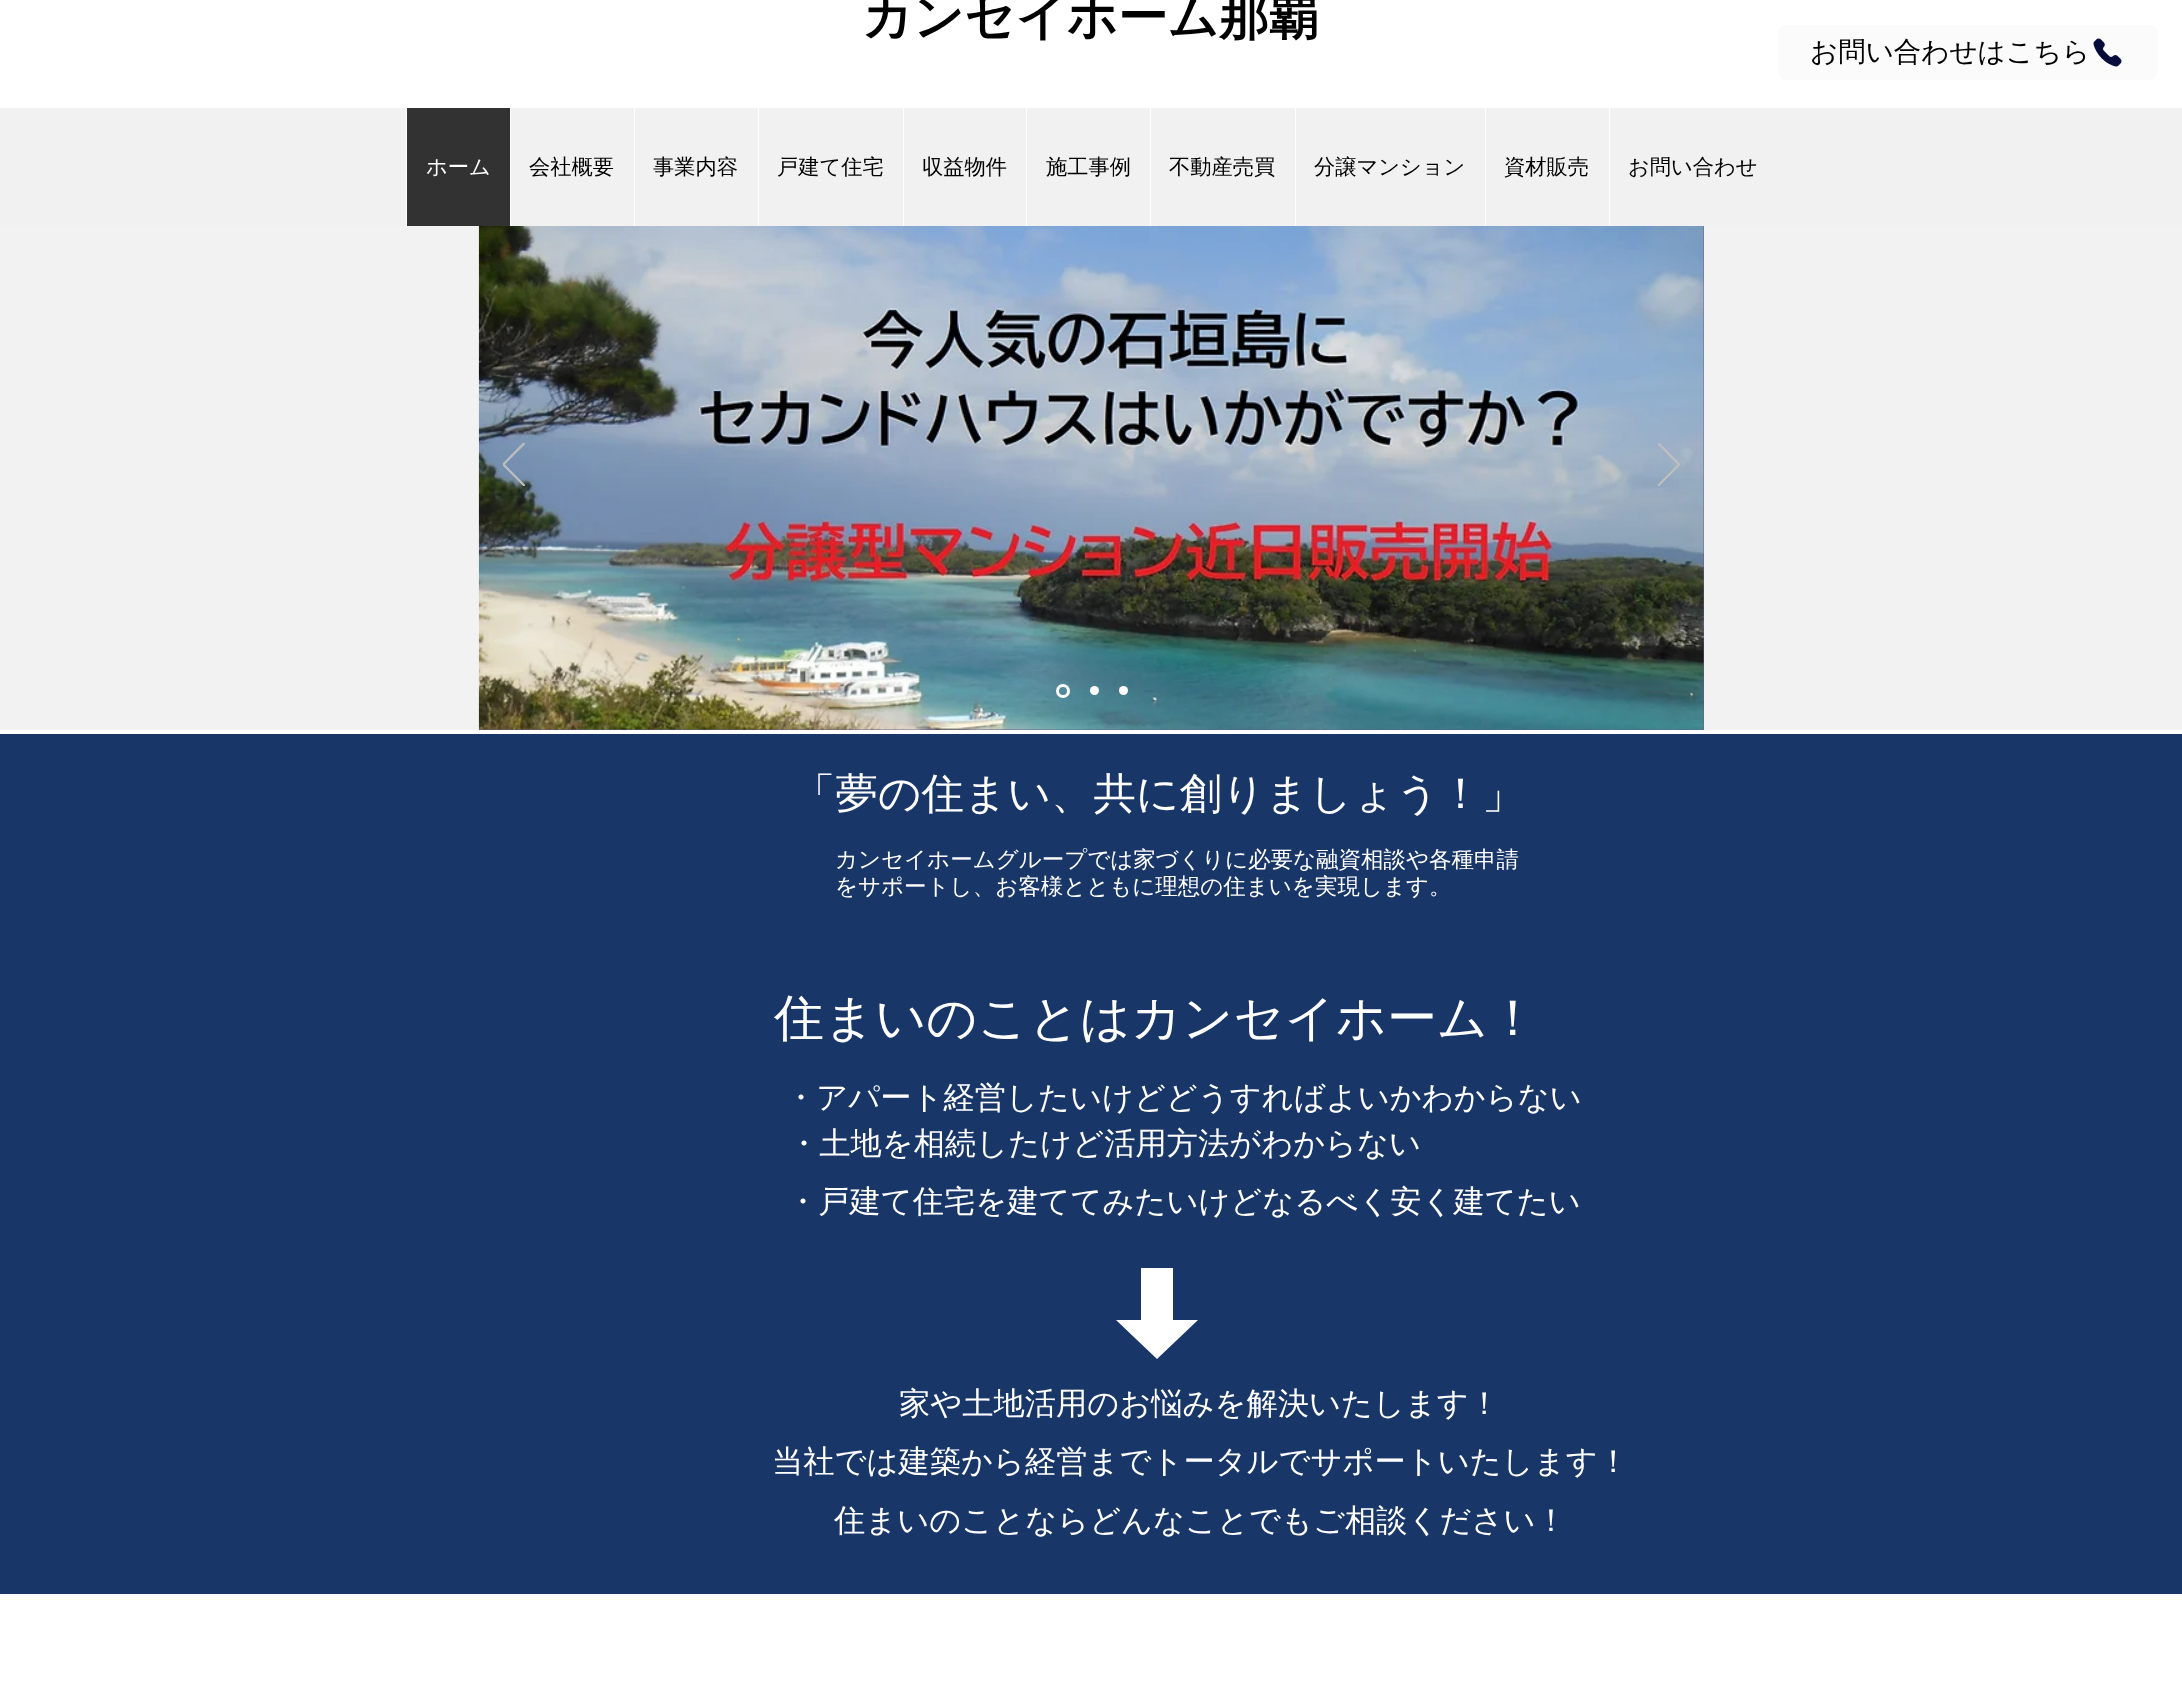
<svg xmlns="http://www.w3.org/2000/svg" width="2182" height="1682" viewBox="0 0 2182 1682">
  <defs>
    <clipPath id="clip1"><path d="M503 443h22v43H503z"/></clipPath>
    <clipPath id="clip2"><path d="M1658 443h22v43H1658z"/></clipPath>
  </defs>
  <rect width="100%" height="100%" fill="#fff"/>
  <path d="M0 108h2182v118H0z" fill="#f1f1f1"/>
  <path d="M407 108h103v118H407z" fill="#323232"/>
  <path d="M406 108h1v118H406z" fill="#fff"/>
  <path d="M510 108h1v118H510z" fill="#fff"/>
  <path d="M634 108h1v118H634z" fill="#fff"/>
  <path d="M758 108h1v118H758z" fill="#fff"/>
  <path d="M903 108h1v118H903z" fill="#fff"/>
  <path d="M1026 108h1v118H1026z" fill="#fff"/>
  <path d="M1150 108h1v118H1150z" fill="#fff"/>
  <path d="M1295 108h1v118H1295z" fill="#fff"/>
  <path d="M1485 108h1v118H1485z" fill="#fff"/>
  <path d="M1609 108h1v118H1609z" fill="#fff"/>
  <rect x="1778" y="25" width="380" height="55" rx="9" fill="#fbfbfb"/>
  <image x="2093" y="38" width="29" height="29" href="img/1.png"/>
  <path d="M0 226h2182v504H0z" fill="#f2f2f2"/>
  <path d="M479 226h1225v504H479z" fill="#645a84"/>
  <image x="478" y="226" width="1226" height="504" href="img/2.png"/>
  <g clip-path="url(#clip1)">
    <path d="M524 486L502.5 464.5L524 442.5L525 443.5L504 464.5L525 485.5Z" fill="none" stroke="#bfbfbf" stroke-width="1.1"/>
  </g>
  <g clip-path="url(#clip2)">
    <path d="M1658.5 486L1680 464.5L1658.5 442.5L1657.5 443.5L1678.5 464.5L1657.5 485.5Z" fill="none" stroke="#bfbfbf" stroke-width="1.1"/>
  </g>
  <circle cx="1063" cy="691" r="5.5" fill="none" stroke="#fff" stroke-width="3"/>
  <circle cx="1094.5" cy="690.5" r="4.5" fill="#fff"/>
  <circle cx="1123.5" cy="690.5" r="4.5" fill="#fff"/>
  <path d="M0 734h2182v860H0z" fill="#193669"/>
  <path d="M1157 1359L1198 1320H1173V1268H1141V1320H1116Z" fill="#fff"/>
  <text x="862" y="34" font-family="WenQuanYi Zen Hei" font-size="50" font-weight="bold" fill="#000">カンセイホーム那覇</text>
  <text x="426" y="174" font-family="WenQuanYi Zen Hei" font-size="21.25" font-weight="500" fill="#fff">ホーム</text>
  <g font-family="WenQuanYi Zen Hei" font-size="21.25" font-weight="500" fill="#000">
    <text x="529" y="174">会社概要</text>
    <text x="653" y="174">事業内容</text>
    <text x="777" y="174">戸建て住宅</text>
    <text x="922" y="174">収益物件</text>
    <text x="1046" y="174">施工事例</text>
    <text x="1169" y="174">不動産売買</text>
    <text x="1314" y="174">分譲マンション</text>
    <text x="1504" y="174">資材販売</text>
    <text x="1628" y="174">お問い合わせ</text>
  </g>
  <text x="1810" y="61" font-family="WenQuanYi Zen Hei" font-size="27.5" font-weight="500" fill="#000">お問い合わせはこちら</text>
  <text x="793" y="808" font-family="WenQuanYi Zen Hei" font-size="42.5" font-weight="500" fill="#fff">「夢の住まい、共に創りましょう！」</text>
  <g font-family="WenQuanYi Zen Hei" font-size="22.5" font-weight="500" fill="#fff">
    <text x="835" y="867">カンセイホームグループでは家づくりに必要な融資相談や各種申請</text>
    <text x="835" y="894">をサポートし、お客様とともに理想の住まいを実現します。</text>
  </g>
  <text x="774" y="1035" font-family="WenQuanYi Zen Hei" font-size="50" font-weight="500" fill="#fff">住まいのことはカンセイホーム！</text>
  <g font-family="WenQuanYi Zen Hei" font-size="31.25" font-weight="500" fill="#fff">
    <text x="785" y="1108">・アパート経営したいけどどうすればよいかわからない</text>
    <text x="788" y="1154">・土地を相続したけど活用方法がわからない</text>
    <text x="787" y="1212">・戸建て住宅を建ててみたいけどなるべく安く建てたい</text>
    <text x="899" y="1414">家や土地活用のお悩みを解決いたします！</text>
    <text x="772" y="1472">当社では建築から経営までトータルでサポートいたします！</text>
    <text x="834" y="1531">住まいのことならどんなことでもご相談ください！</text>
  </g>
</svg>
